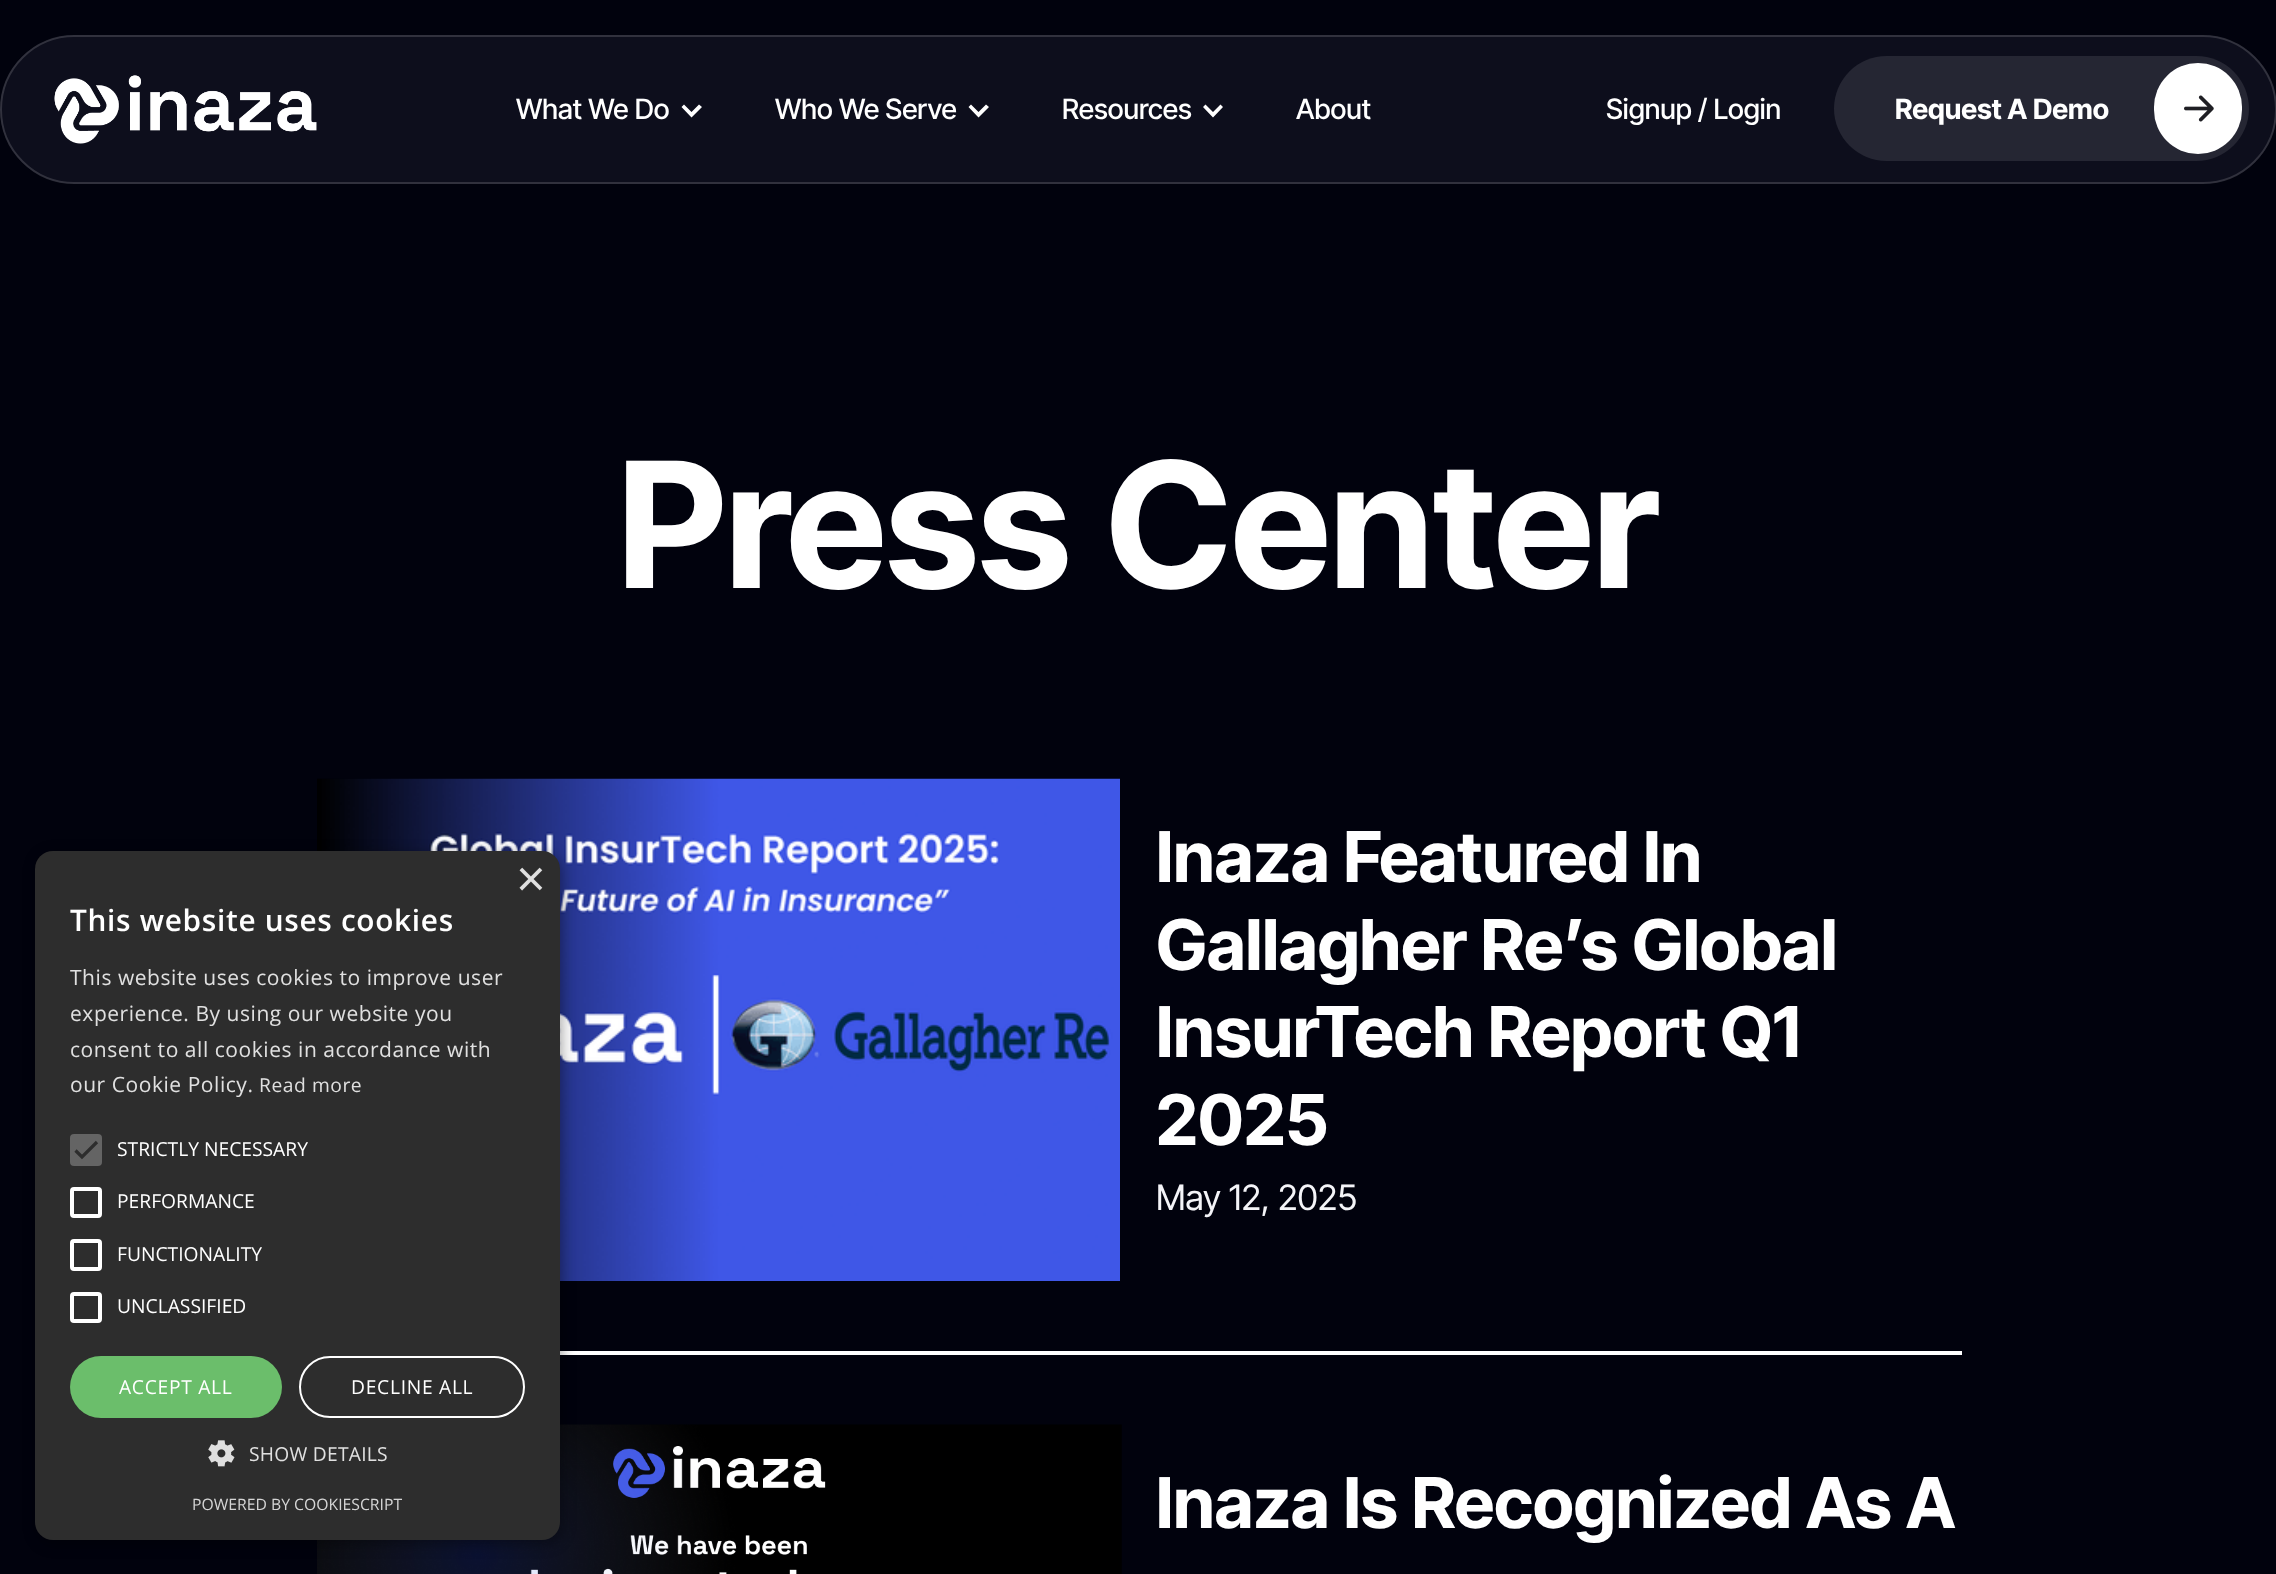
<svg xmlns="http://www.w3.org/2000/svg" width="2276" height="1574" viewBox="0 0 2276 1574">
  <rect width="100%" height="100%" fill="#01020d"/>
  <rect y="35" width="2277" height="149" rx="74.5" fill="#0d0e1c"/>
  <rect x="1" y="36" width="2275" height="147" rx="73.5" fill="none" stroke="#ffffff26" stroke-width="2"/>
  <image x="54" y="75" width="263" height="69" href="img/1.png"/>
  <path d="M699 104.5L691.5 112L684 104.5L681.5 107L691.5 117.5L702 107Z" fill="#fff"/>
  <path d="M986 104.5L978.5 112L971 104.5L968.5 107L978.5 117.5L989 107Z" fill="#fff"/>
  <path d="M1220.5 104.5L1213 112L1205.5 104.5L1203 107L1213 117.5L1223 107Z" fill="#fff"/>
  <rect x="1834" y="56" width="415" height="105" rx="52.5" fill="#252633"/>
  <rect x="2154" y="63" width="88" height="91" rx="44" fill="#fff"/>
  <image x="2184" y="95" width="30" height="27" href="img/2.png"/>
  <path d="M560 1351h1402v4H560z" fill="#fff"/>
  <image x="317" y="778" width="803" height="503" href="img/4.png"/>
  <image x="317" y="1424" width="805" height="150" href="img/5.png"/>
  <rect x="37" y="854" width="525" height="690" rx="18" fill="#00000059" filter="blur(7px)"/>
  <rect x="35" y="851" width="525" height="689" rx="18" fill="#2d2d2d"/>
  <rect x="70" y="1134" width="32" height="32" rx="4" fill="#646464"/>
  <path d="M75.5 1150.5L82 1157L97 1142" fill="none" stroke="#2d2d2d" stroke-width="3.2"/>
  <rect x="72" y="1189" width="28" height="27" rx="2" fill="none" stroke="#fff" stroke-width="4"/>
  <rect x="72" y="1241" width="28" height="28" rx="2" fill="none" stroke="#fff" stroke-width="4"/>
  <rect x="72" y="1294" width="28" height="27" rx="2" fill="none" stroke="#fff" stroke-width="4"/>
  <rect x="70" y="1356" width="212" height="62" rx="31" fill="#6bbe6b"/>
  <rect x="300" y="1357" width="224" height="60" rx="30" fill="none" stroke="#fff" stroke-width="2"/>
  <image x="208" y="1440" width="27" height="27" href="img/3.png"/>
  <g font-family="Inter Tight" font-size="28" font-weight="500" fill="#fff">
    <text x="516" y="119">What We Do</text>
    <text x="775" y="119">Who We Serve</text>
    <text x="1062" y="119">Resources</text>
    <text x="1296" y="119">About</text>
    <text x="1606" y="119">Signup / Login</text>
  </g>
  <text x="1895" y="119" font-family="Inter Tight" font-size="28" font-weight="bold" fill="#fff">Request A Demo</text>
  <text x="618" y="588" font-family="Inter Tight" font-size="175" font-weight="bold" fill="#fff">Press Center</text>
  <text x="516" y="896" font-family="Liberation Sans" font-size="51" fill="#e0e0e0">×</text>
  <text x="70" y="931" font-family="Open Sans" font-size="29.75" font-weight="600" letter-spacing="0.7" fill="#fff">This website uses cookies</text>
  <g font-family="Open Sans" font-size="21" letter-spacing="0.55" fill="#e0e0e0">
    <text x="70" y="985">This website uses cookies to improve user</text>
    <text x="70" y="1021">experience. By using our website you</text>
    <text x="70" y="1057">consent to all cookies in accordance with</text>
    <text x="70" y="1092">our Cookie Policy.</text>
  </g>
  <text x="259" y="1092" font-family="Open Sans" font-size="19.25" letter-spacing="0.55" fill="#e0e0e0">Read more</text>
  <g font-family="Open Sans" font-size="19.25" fill="#fff">
    <text x="117" y="1156">STRICTLY NECESSARY</text>
    <text x="117" y="1208">PERFORMANCE</text>
    <text x="117" y="1261">FUNCTIONALITY</text>
    <text x="117" y="1313">UNCLASSIFIED</text>
  </g>
  <g font-family="Open Sans" font-size="19.25" letter-spacing="0.7" fill="#fff">
    <text x="119" y="1394">ACCEPT ALL</text>
    <text x="351" y="1394">DECLINE ALL</text>
  </g>
  <text x="249" y="1461" font-family="Open Sans" font-size="19.25" letter-spacing="0.25" fill="#e0e0e0">SHOW DETAILS</text>
  <text x="192" y="1510" font-family="Open Sans" font-size="15.75" fill="#d5d5d5">POWERED BY COOKIESCRIPT</text>
  <g font-family="Inter Tight" font-size="70" font-weight="bold" fill="#fff">
    <text x="1156" y="882">Inaza Featured In</text>
    <text x="1156" y="970">Gallagher Re’s Global</text>
    <text x="1156" y="1057">InsurTech Report Q1</text>
    <text x="1156" y="1145">2025</text>
  </g>
  <text x="1156" y="1210" font-family="Inter Tight" font-size="35" fill="#f4f4f8">May 12, 2025</text>
  <text x="1156" y="1528" font-family="Inter Tight" font-size="70" font-weight="bold" fill="#fff">Inaza Is Recognized As A</text>
</svg>
